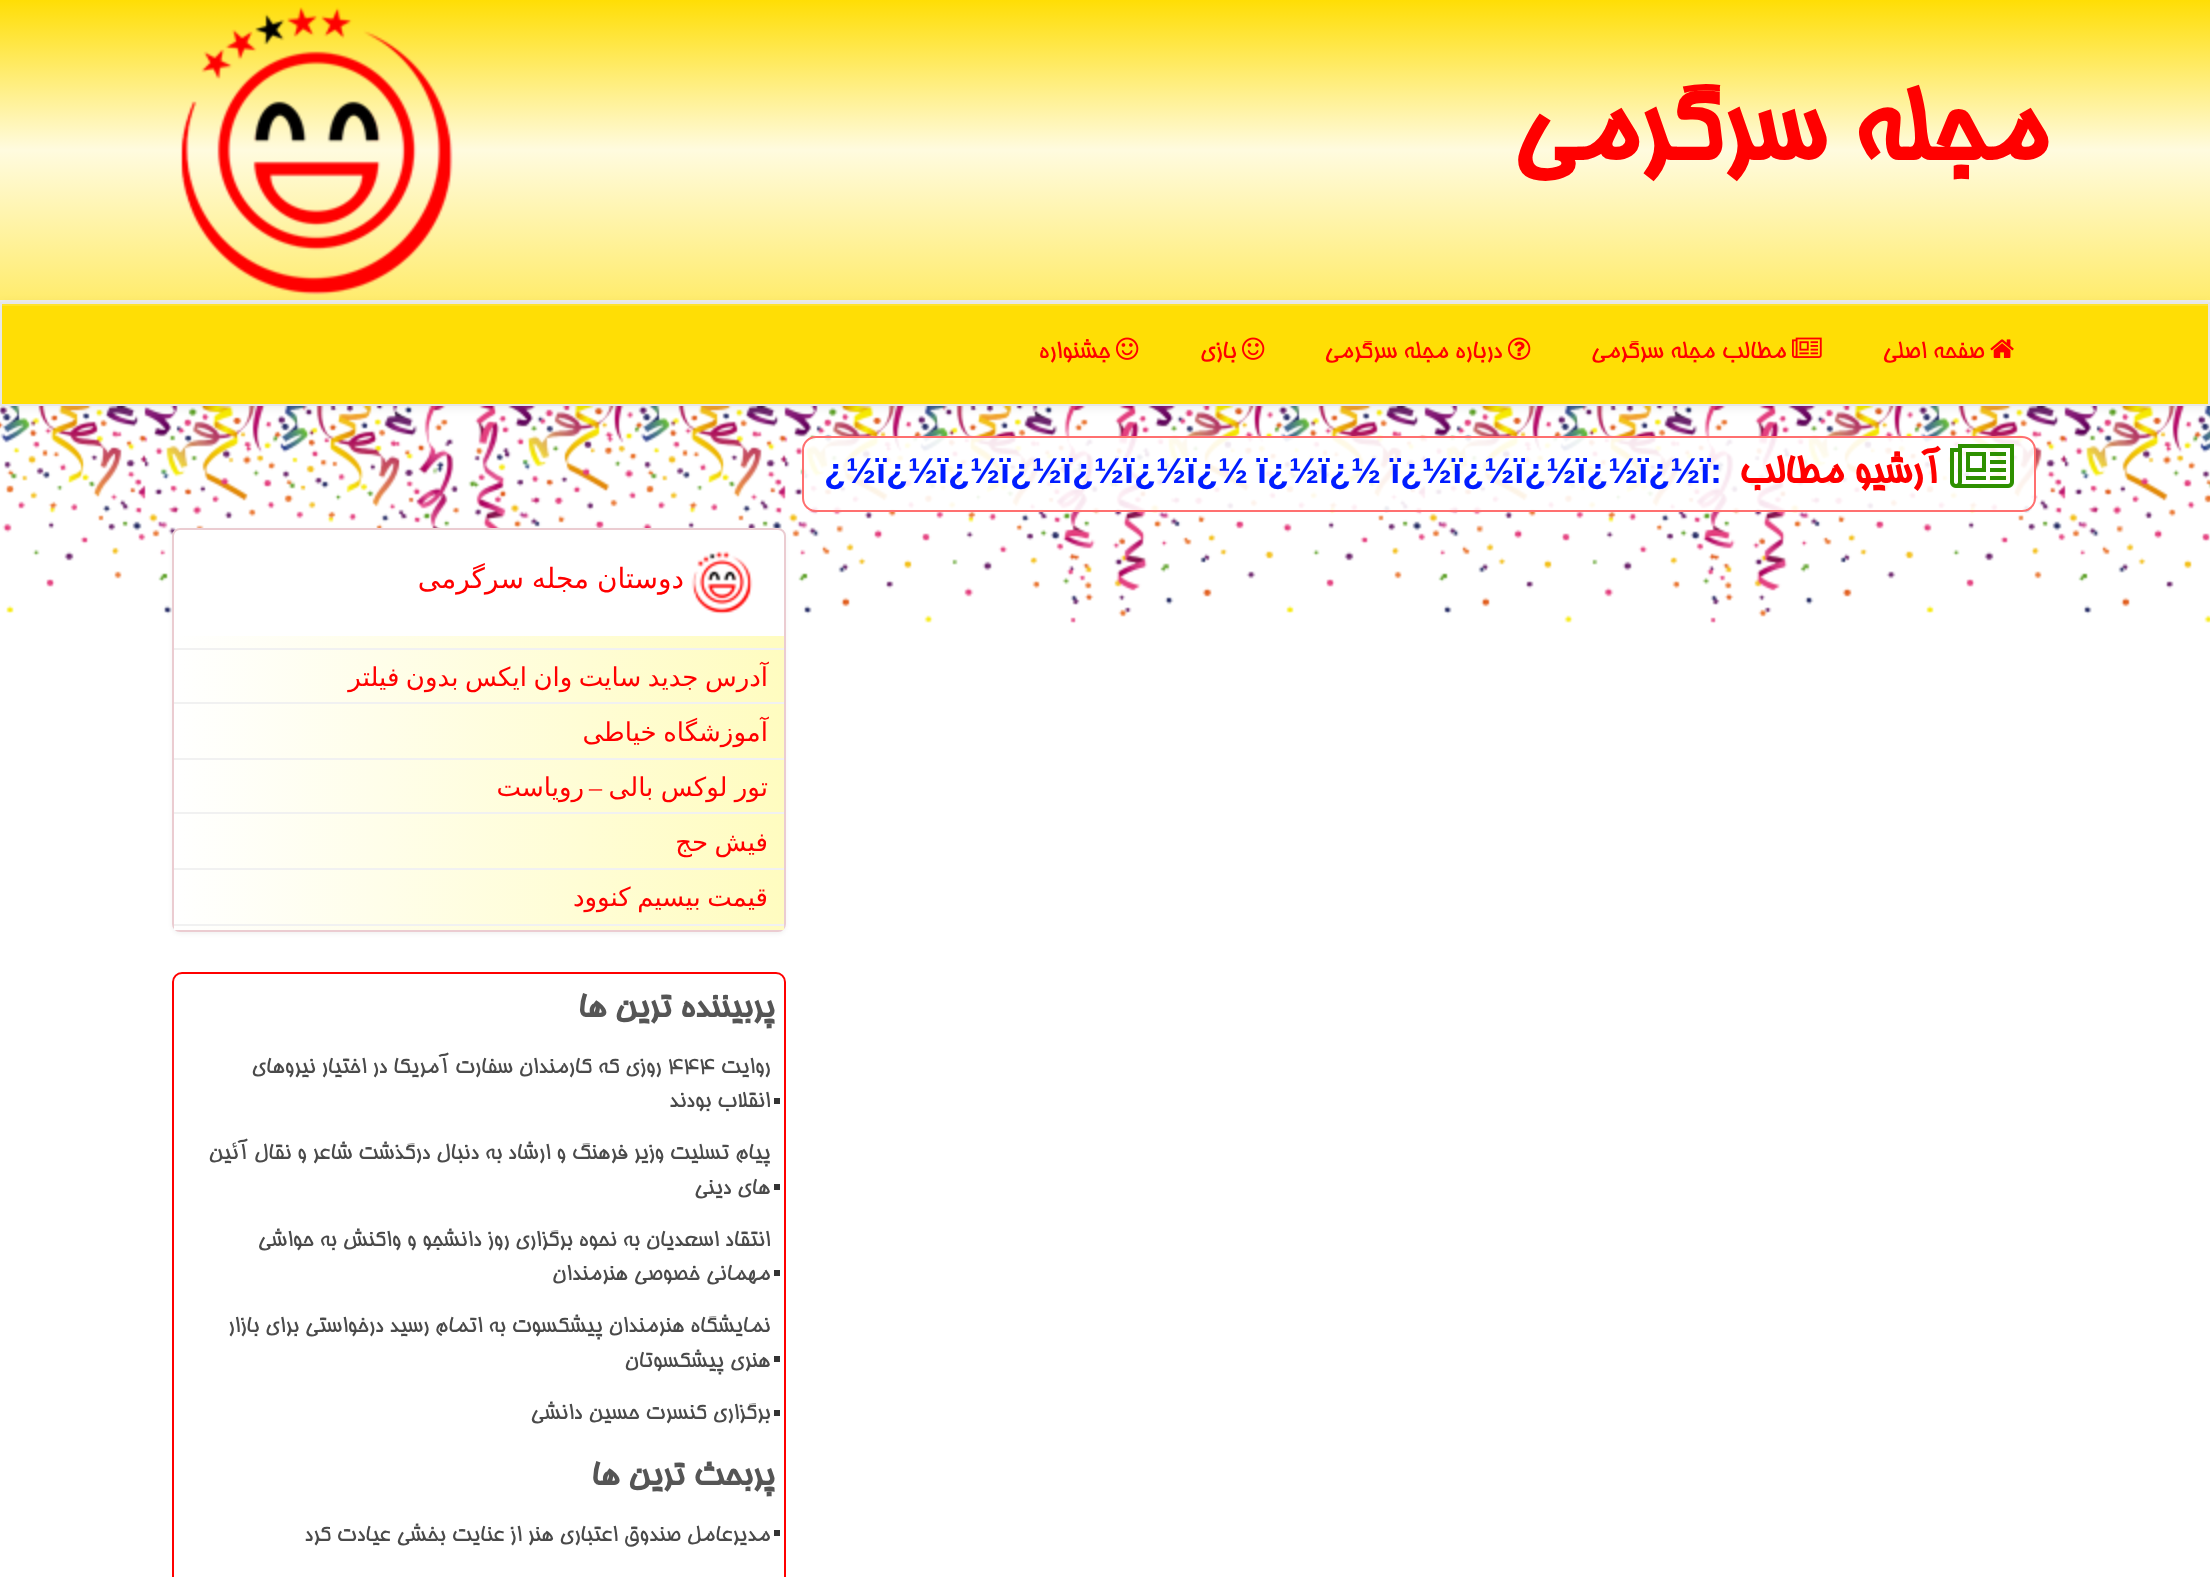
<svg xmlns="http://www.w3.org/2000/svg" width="2210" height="1577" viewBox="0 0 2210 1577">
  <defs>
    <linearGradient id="g1" gradientUnits="userSpaceOnUse" x1="1105" y1="0" x2="1105" y2="300"><stop offset="0" stop-color="#ffde05"/><stop offset="0.5" stop-color="#fffbdf"/><stop offset="1" stop-color="#ffec6d"/></linearGradient>
    <linearGradient id="g2" gradientUnits="userSpaceOnUse" x1="174" y1="783" x2="784" y2="783"><stop offset="0" stop-color="#fff"/><stop offset="1" stop-color="#fffcc0"/></linearGradient>
  </defs>
  <rect width="100%" height="100%" fill="#fff"/>
  <path d="M0 0h2210v300H0z" fill="url(#g1)"/>
  <path d="M0 300h2210v2H0z" fill="#eee"/>
  <image x="180" y="7" width="273" height="288" href="img/1.png"/>
  <image x="0" y="406" width="2210" height="218" href="img/6.png"/>
  <path d="M0 304h2210v104H0z" fill="#00000012" filter="blur(5px)"/>
  <path d="M2 306h2206v98H2z" fill="#ffde05"/>
  <path d="M2 304h2206v2H2z" fill="#ffe32b"/>
  <path d="M1 303h2208v102H1z" fill="none" stroke="#e7e7e7" stroke-width="2"/>
  <image x="1990" y="339" width="24" height="19" href="img/2.png"/>
  <image x="1792" y="337" width="30" height="21" href="img/3.png"/>
  <image x="1508" y="337" width="23" height="23" href="img/4.png"/>
  <image x="1242" y="337" width="23" height="23" href="img/5.png"/>
  <image x="1116" y="337" width="23" height="23" href="img/5.png"/>
  <rect x="803" y="437" width="1232" height="74" rx="13" fill="#ffffffe6" stroke="#ff7070" stroke-width="2"/>
  <image x="1950" y="444" width="64" height="44" href="img/7.png"/>
  <rect x="172" y="530" width="614" height="404" rx="8" fill="#0000000d" filter="blur(2px)"/>
  <rect x="173" y="529" width="612" height="402" rx="7" fill="#fff" stroke="#ebccd1" stroke-width="2"/>
  <image x="691" y="551" width="62" height="63" href="img/8.png"/>
  <path d="M174 636h610v294H174z" fill="url(#g2)"/>
  <path d="M174 648h610v2H174z" fill="#f1f1f1"/>
  <path d="M174 702h610v2H174z" fill="#f1f1f1"/>
  <path d="M174 758h610v2H174z" fill="#f1f1f1"/>
  <path d="M174 812h610v2H174z" fill="#f1f1f1"/>
  <path d="M174 868h610v2H174z" fill="#f1f1f1"/>
  <path d="M174 924h610v2H174z" fill="#f1f1f1"/>
  <rect x="173" y="973" width="612" height="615" rx="9" fill="none" stroke="#f00" stroke-width="2"/>
  <path d="M774 1098h6v6H774z" fill="#333"/>
  <path d="M774 1184h6v6H774z" fill="#333"/>
  <path d="M774 1270h6v6H774z" fill="#333"/>
  <path d="M774 1356h6v6H774z" fill="#333"/>
  <path d="M774 1410h6v6H774z" fill="#333"/>
  <path d="M774 1530h6v6H774z" fill="#333"/>
  <text x="2045" y="160" font-family="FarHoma" font-size="112" font-weight="bold" direction="rtl" fill="#f00">مجله سرگرمی</text>
  <g font-family="FarHoma" font-size="26" direction="rtl" fill="#f00">
    <text x="1984" y="358">صفحه اصلی</text>
    <text x="1786" y="358">مطالب مجله سرگرمی</text>
    <text x="1502" y="358">درباره مجله سرگرمی</text>
    <text x="1236" y="358">بازی</text>
    <text x="1110" y="358">جشنواره</text>
  </g>
  <text x="1939" y="483" font-family="FarHoma" font-size="42" font-weight="bold" direction="rtl" fill="#f00">آرشیو مطالب</text>
  <g font-family="Liberation Sans" font-size="36" font-weight="bold" fill="#001dff">
    <text x="1710" y="483">:</text>
    <text x="876" y="483" word-spacing="-1">ï¿½ï¿½ï¿½ï¿½ï¿½ï¿½ ï¿½ï¿½ ï¿½ï¿½ï¿½ï¿½ï¿½ï</text>
    <text x="824" y="483">¿½</text>
  </g>
  <text x="684" y="588" word-spacing="-1" font-family="DejaVu Sans" font-size="28" direction="rtl" fill="#f00">دوستان مجله سرگرمی</text>
  <g font-family="DejaVu Sans" font-size="26" direction="rtl" fill="#f00">
    <text x="768" y="686" word-spacing="-1.75">آدرس جدید سایت وان ایکس بدون فیلتر</text>
    <text x="768" y="741" word-spacing="-1.75">آموزشگاه خیاطی</text>
    <text x="768" y="796" word-spacing="-1">تور لوکس بالی</text>
  </g>
  <text x="602" y="796" font-family="Liberation Serif" font-size="26" direction="rtl" fill="#f00">–</text>
  <g font-family="DejaVu Sans" font-size="26" direction="rtl" fill="#f00">
    <text x="584" y="796">رویاست</text>
    <text x="768" y="851" word-spacing="-1.75">فیش حج</text>
    <text x="768" y="906" word-spacing="-1.75">قیمت بیسیم کنوود</text>
  </g>
  <text x="774" y="1017" font-family="FarHoma" font-size="36" font-weight="bold" direction="rtl" fill="#555">پربیننده ترین ها</text>
  <text x="770" y="1073" font-family="FarHoma" font-size="24" direction="rtl" fill="#4a4a4a">روایت</text>
  <text x="667" y="1073" font-family="FarHoma" font-size="24" fill="#4a4a4a">۴۴۴</text>
  <g font-family="FarHoma" font-size="24" direction="rtl" fill="#4a4a4a">
    <text x="661" y="1073">روزی که کارمندان سفارت آمریکا در اختیار نیروهای</text>
    <text x="770" y="1107">انقلاب بودند</text>
    <text x="770" y="1159">پیام تسلیت وزیر فرهنگ و ارشاد به دنبال درگذشت شاعر و نقال آئین</text>
    <text x="770" y="1194">های دینی</text>
    <text x="770" y="1246">انتقاد اسعدیان به نحوه برگزاری روز دانشجو و واکنش به حواشی</text>
    <text x="770" y="1280">مهمانی خصوصی هنرمندان</text>
    <text x="770" y="1332">نمایشگاه هنرمندان پیشکسوت به اتمام رسید درخواستی برای بازار</text>
    <text x="770" y="1367">هنری پیشکسوتان</text>
    <text x="770" y="1419">برگزاری کنسرت حسین دانشی</text>
  </g>
  <text x="774" y="1485" font-family="FarHoma" font-size="36" font-weight="bold" direction="rtl" fill="#555">پربحث ترین ها</text>
  <text x="770" y="1541" font-family="FarHoma" font-size="24" direction="rtl" fill="#4a4a4a">مدیرعامل صندوق اعتباری هنر از عنایت بخشی عیادت کرد</text>
</svg>
